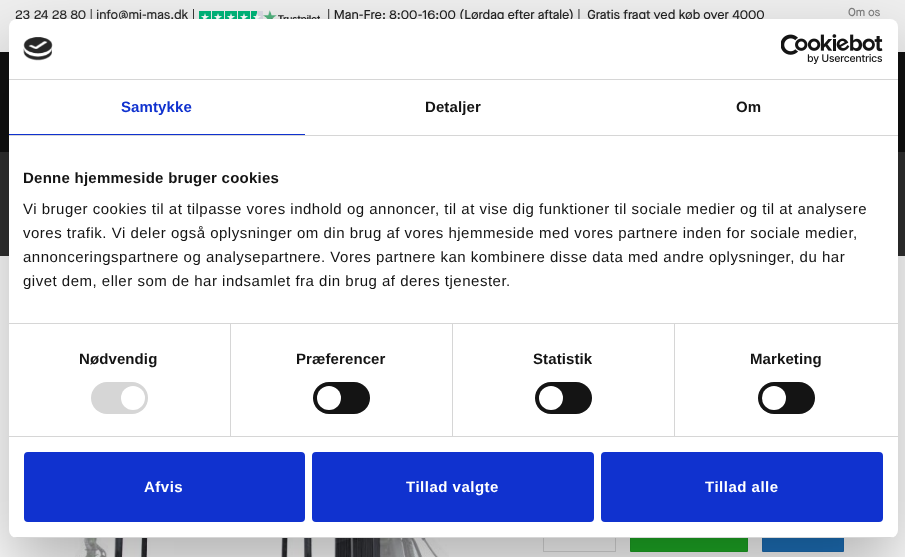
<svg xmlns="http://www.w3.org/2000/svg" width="905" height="557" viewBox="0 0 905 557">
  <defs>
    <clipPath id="clip1"><rect x="9" y="19" width="889" height="519" rx="8"/></clipPath>
  </defs>
  <rect width="100%" height="100%" fill="#fff"/>
  <path d="M0 0h905v52H0z" fill="#efefef"/>
  <image x="199" y="11" width="64" height="8" href="img/1.png"/>
  <image x="263" y="10" width="57" height="9" href="img/2.png"/>
  <path d="M0 52h905v100H0z" fill="#111"/>
  <path d="M0 152h905v104H0z" fill="#303030"/>
  <image x="75" y="538" width="374" height="19" href="img/3.png"/>
  <path d="M543 551h49v1H543z" fill="#ddd"/>
  <path d="M543 538h1v14H543z" fill="#ddd"/>
  <path d="M615 538h1v14H615z" fill="#ddd"/>
  <path d="M592 551h24v1H592z" fill="#ddd"/>
  <path d="M631 538h116v13H631z" fill="#1fad26"/>
  <path d="M630.5 516.5h117v35H630.5z" fill="none" stroke="#1da424"/>
  <path d="M763 538h80v13H763z" fill="#1e73be"/>
  <path d="M762.5 516.5h81v35H762.5z" fill="none" stroke="#1d6db5"/>
  <rect x="9" y="51" width="889" height="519" rx="8" fill="#0000004d" filter="blur(34px)"/>
  <text x="15" y="19" font-family="Maison Neue" font-size="12.95" font-weight="500" fill="#282828">23 24 28 80 | info@mi-mas.dk |</text>
  <text x="327" y="19" font-family="Maison Neue" font-size="12.95" font-weight="500" fill="#212121" xml:space="preserve">| Man-Fre: 8:00-16:00 (Lørdag efter aftale) |  Gratis fragt ved køb over 4000</text>
  <text x="848" y="16" font-family="Maison Neue" font-size="11.5" font-weight="500" fill="#7b7b7b">Om os</text>
  <rect x="9" y="19" width="889" height="519" rx="8" fill="#fff"/>
  <path d="M9 79h889v1H9z" fill="#d6d6d6"/>
  <image x="23" y="37" width="30" height="24" href="img/4.png"/>
  <image x="781" y="34" width="102" height="30" href="img/5.png"/>
  <path d="M9 135h889v1H9z" fill="#d6d6d6"/>
  <path d="M9 134h296v1H9z" fill="#1032cf"/>
  <text x="121" y="112" font-family="Liberation Sans" font-size="15" font-weight="bold" letter-spacing="0.1" fill="#1032cf">Samtykke</text>
  <g font-family="Liberation Sans" font-size="15" font-weight="bold" letter-spacing="0.1" fill="#141414">
    <text x="425" y="112">Detaljer</text>
    <text x="736" y="112">Om</text>
  </g>
  <path d="M9 323h889v1H9z" fill="#d6d6d6"/>
  <text x="23" y="183" font-family="Liberation Sans" font-size="15" font-weight="bold" letter-spacing="0.25" fill="#141414">Denne hjemmeside bruger cookies</text>
  <g font-family="Liberation Sans" font-size="15" letter-spacing="0.5" fill="#141414">
    <text x="23" y="214">Vi bruger cookies til at tilpasse vores indhold og annoncer, til at vise dig funktioner til sociale medier og til at analysere</text>
    <text x="23" y="238">vores trafik. Vi deler også oplysninger om din brug af vores hjemmeside med vores partnere inden for sociale medier,</text>
    <text x="23" y="262">annonceringspartnere og analysepartnere. Vores partnere kan kombinere disse data med andre oplysninger, du har</text>
    <text x="23" y="286">givet dem, eller som de har indsamlet fra din brug af deres tjenester.</text>
  </g>
  <path d="M9 436h889v1H9z" fill="#d6d6d6"/>
  <path d="M230 324h1v112H230z" fill="#d6d6d6"/>
  <text x="79" y="364" font-family="Liberation Sans" font-size="15" font-weight="bold" letter-spacing="0.1" fill="#141414">Nødvendig</text>
  <rect x="91" y="382" width="57" height="32" rx="16" fill="#d6d6d6"/>
  <circle cx="133" cy="398" r="12" fill="#fff"/>
  <path d="M452 324h1v112H452z" fill="#d6d6d6"/>
  <text x="296" y="364" font-family="Liberation Sans" font-size="15" font-weight="bold" letter-spacing="0.1" fill="#141414">Præferencer</text>
  <rect x="313" y="382" width="57" height="32" rx="16" fill="#141414"/>
  <circle cx="329" cy="398" r="12" fill="#fff"/>
  <path d="M674 324h1v112H674z" fill="#d6d6d6"/>
  <text x="533" y="364" font-family="Liberation Sans" font-size="15" font-weight="bold" letter-spacing="0.1" fill="#141414">Statistik</text>
  <rect x="535" y="382" width="57" height="32" rx="16" fill="#141414"/>
  <circle cx="551" cy="398" r="12" fill="#fff"/>
  <text x="750" y="364" font-family="Liberation Sans" font-size="15" font-weight="bold" letter-spacing="0.1" fill="#141414">Marketing</text>
  <rect x="758" y="382" width="57" height="32" rx="16" fill="#141414"/>
  <circle cx="774" cy="398" r="12" fill="#fff"/>
  <g clip-path="url(#clip1)">
    <path d="M9 537h889v1H9z" fill="#d6d6d6"/>
  </g>
  <rect x="25" y="453" width="279" height="68" rx="3" fill="#1032cf" stroke="#1032cf" stroke-width="2"/>
  <text x="144" y="492" font-family="Liberation Sans" font-size="15" font-weight="bold" letter-spacing="0.5" fill="#fff">Afvis</text>
  <rect x="313" y="453" width="280" height="68" rx="3" fill="#1032cf" stroke="#1032cf" stroke-width="2"/>
  <text x="406" y="492" font-family="Liberation Sans" font-size="15" font-weight="bold" letter-spacing="0.5" fill="#fff">Tillad valgte</text>
  <rect x="602" y="453" width="280" height="68" rx="3" fill="#1032cf" stroke="#1032cf" stroke-width="2"/>
  <text x="705" y="492" font-family="Liberation Sans" font-size="15" font-weight="bold" letter-spacing="0.5" fill="#fff">Tillad alle</text>
</svg>
